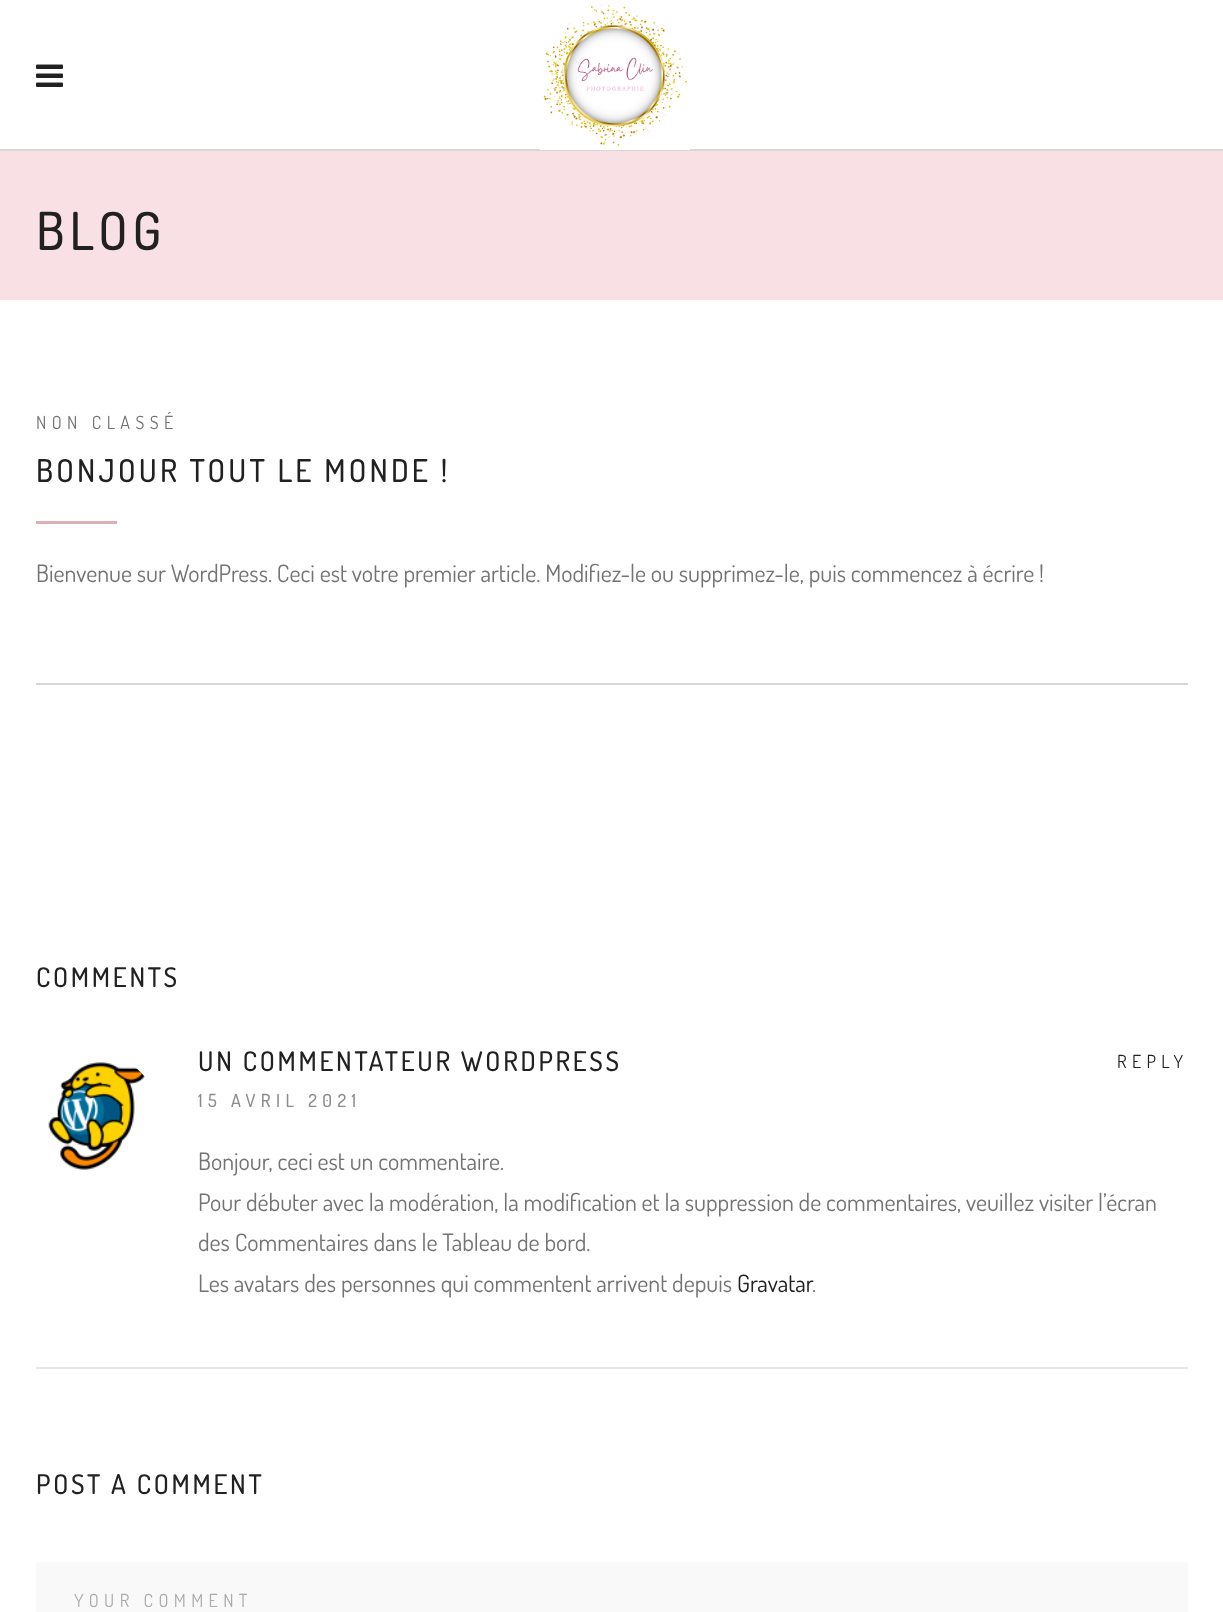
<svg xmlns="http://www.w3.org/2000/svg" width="1223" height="1612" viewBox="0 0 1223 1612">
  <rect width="100%" height="100%" fill="#fff"/>
  <path d="M0 149h1223v2H0z" fill="#d7d7d7"/>
  <image x="36" y="64" width="27" height="23" href="img/1.png"/>
  <image x="540" y="4" width="150" height="146" href="img/2.png"/>
  <path d="M0 151h1223v149H0z" fill="#f9e0e5"/>
  <path d="M36 683h1152v2H36z" fill="#d7d7d7"/>
  <path d="M36 521h81v3H36z" fill="#ddb0b7"/>
  <path d="M36 1367h1152v2H36z" fill="#e7e7e7"/>
  <image x="48" y="1062" width="97" height="108" href="img/3.png"/>
  <path d="M36 1562h1152v50H36z" fill="#f9f9f9"/>
  <text x="36" y="250" font-family="Dosis" font-size="52.5" font-weight="500" letter-spacing="5" fill="#212121">BLOG</text>
  <text x="36" y="429" font-family="Dosis" font-size="18" letter-spacing="5.4" fill="#737373">NON CLASSÉ</text>
  <text x="36" y="482" font-family="Dosis" font-size="31.5" font-weight="500" letter-spacing="3.15" fill="#212121">BONJOUR TOUT LE MONDE !</text>
  <text x="36" y="582" font-family="Dosis" font-size="24" fill="#737373">Bienvenue sur WordPress. Ceci est votre premier article. Modifiez-le ou supprimez-le, puis commencez à écrire !</text>
  <g font-family="Dosis" font-size="27" font-weight="500" letter-spacing="2.7" fill="#212121">
    <text x="36" y="987">COMMENTS</text>
    <text x="198" y="1071">UN COMMENTATEUR WORDPRESS</text>
  </g>
  <text x="1117" y="1068" font-family="Dosis" font-size="18" letter-spacing="5.4" fill="#212121">REPLY</text>
  <text x="198" y="1107" font-family="Dosis" font-size="18" font-weight="500" letter-spacing="5.4" fill="#8c8c8c">15 AVRIL 2021</text>
  <g font-family="Dosis" font-size="24" fill="#737373">
    <text x="198" y="1170">Bonjour, ceci est un commentaire.</text>
    <text x="198" y="1211">Pour débuter avec la modération, la modification et la suppression de commentaires, veuillez visiter l’écran</text>
    <text x="198" y="1251">des Commentaires dans le Tableau de bord.</text>
    <text x="198" y="1292">Les avatars des personnes qui commentent arrivent depuis</text>
  </g>
  <text x="737" y="1292" font-family="Dosis" font-size="24" fill="#212121">Gravatar</text>
  <text x="812" y="1292" font-family="Dosis" font-size="24" fill="#737373">.</text>
  <text x="36" y="1494" font-family="Dosis" font-size="27" font-weight="500" letter-spacing="2.7" fill="#212121">POST A COMMENT</text>
  <text x="74" y="1607" font-family="Dosis" font-size="18" letter-spacing="5.4" fill="#aaa">YOUR COMMENT</text>
</svg>
